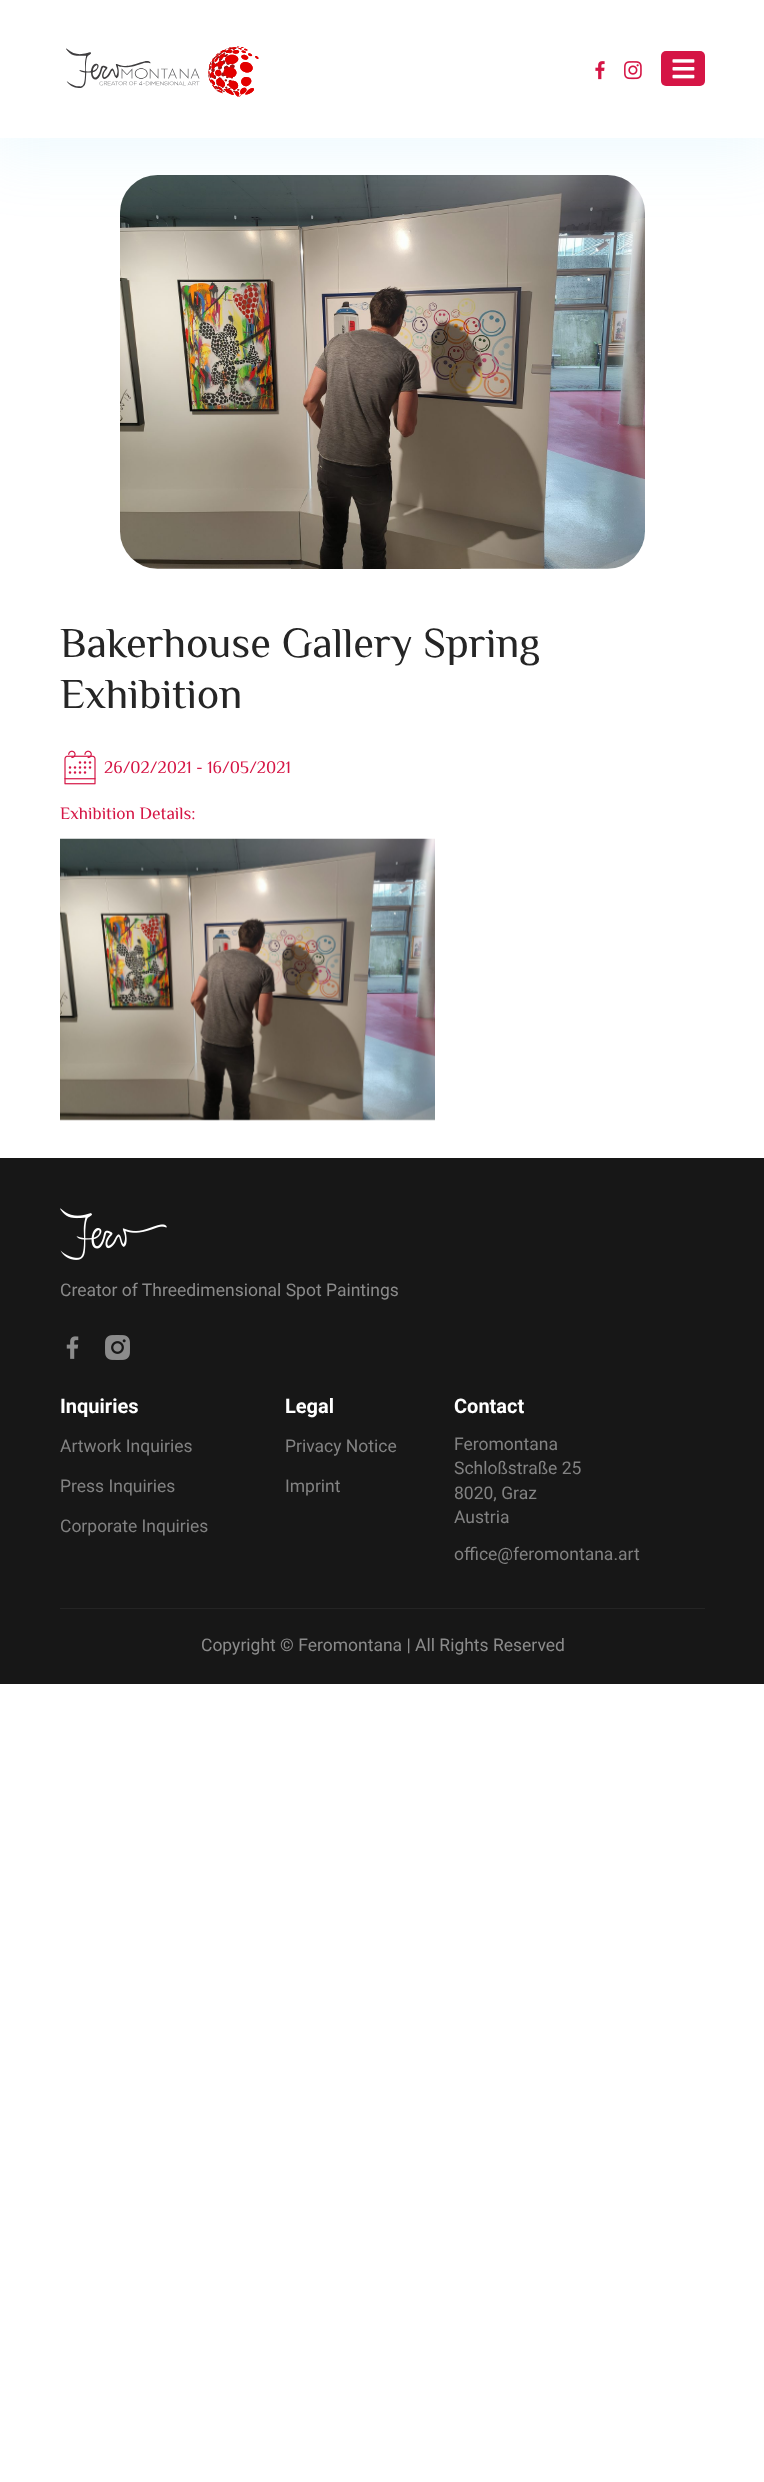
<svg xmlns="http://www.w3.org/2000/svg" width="764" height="2482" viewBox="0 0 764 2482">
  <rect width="100%" height="100%" fill="#fff"/>
  <image x="120" y="175" width="525" height="394" href="img/5.png"/>
  <path d="M-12 -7h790v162H-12z" fill="#8fdcfa26" filter="blur(31px)"/>
  <path d="M0 0h764v138H0z" fill="#fff"/>
  <image x="66" y="46" width="193" height="51" href="img/1.png"/>
  <image x="595" y="61" width="10" height="19" href="img/2.png"/>
  <image x="624" y="61" width="18" height="19" href="img/3.png"/>
  <rect x="661" y="51" width="44" height="35" rx="5" fill="#d51545"/>
  <image x="672" y="59" width="23" height="20" href="img/4.png"/>
  <image x="64" y="750" width="32" height="35" href="img/6.png"/>
  <image x="60" y="838" width="375" height="283" href="img/7.png"/>
  <path d="M0 1158h764v526H0z" fill="#171717"/>
  <image x="60" y="1208" width="107" height="52" href="img/8.png"/>
  <image x="66" y="1336" width="13" height="23" href="img/9.png"/>
  <image x="105" y="1335" width="25" height="25" href="img/10.png"/>
  <path d="M60 1608h645v1H60z" fill="#242424"/>
  <g font-family="ZCOOL XiaoWei" font-size="42.5" fill="#252525">
    <text x="60" y="657">Bakerhouse Gallery Spring</text>
    <text x="60" y="708">Exhibition</text>
  </g>
  <g font-family="ZCOOL XiaoWei" font-size="17.5" fill="#d51545">
    <text x="104" y="773">26/02/2021 - 16/05/2021</text>
    <text x="60" y="819">Exhibition Details:</text>
  </g>
  <text x="60" y="1296" font-family="Roboto" font-size="17.5" fill="#8b8b8b">Creator of Threedimensional Spot Paintings</text>
  <text x="60" y="1413" font-family="Roboto" font-size="20" font-weight="bold" fill="#fff">Inquiries</text>
  <g font-family="Roboto" font-size="17.5" fill="#828282">
    <text x="60" y="1452">Artwork Inquiries</text>
    <text x="60" y="1492">Press Inquiries</text>
    <text x="60" y="1532">Corporate Inquiries</text>
  </g>
  <text x="285" y="1413" font-family="Roboto" font-size="20" font-weight="bold" fill="#fff">Legal</text>
  <g font-family="Roboto" font-size="17.5" fill="#828282">
    <text x="285" y="1452">Privacy Notice</text>
    <text x="285" y="1492">Imprint</text>
  </g>
  <text x="454" y="1413" font-family="Roboto" font-size="20" font-weight="bold" fill="#fff">Contact</text>
  <g font-family="Roboto" font-size="17.5" fill="#828282">
    <text x="454" y="1450">Feromontana</text>
    <text x="454" y="1474">Schloßstraße 25</text>
    <text x="454" y="1499">8020, Graz</text>
    <text x="454" y="1523">Austria</text>
    <text x="454" y="1560">office@feromontana.art</text>
  </g>
  <text x="201" y="1651" font-family="Roboto" font-size="17.5" fill="#8b8b8b">Copyright © Feromontana | All Rights Reserved</text>
</svg>
